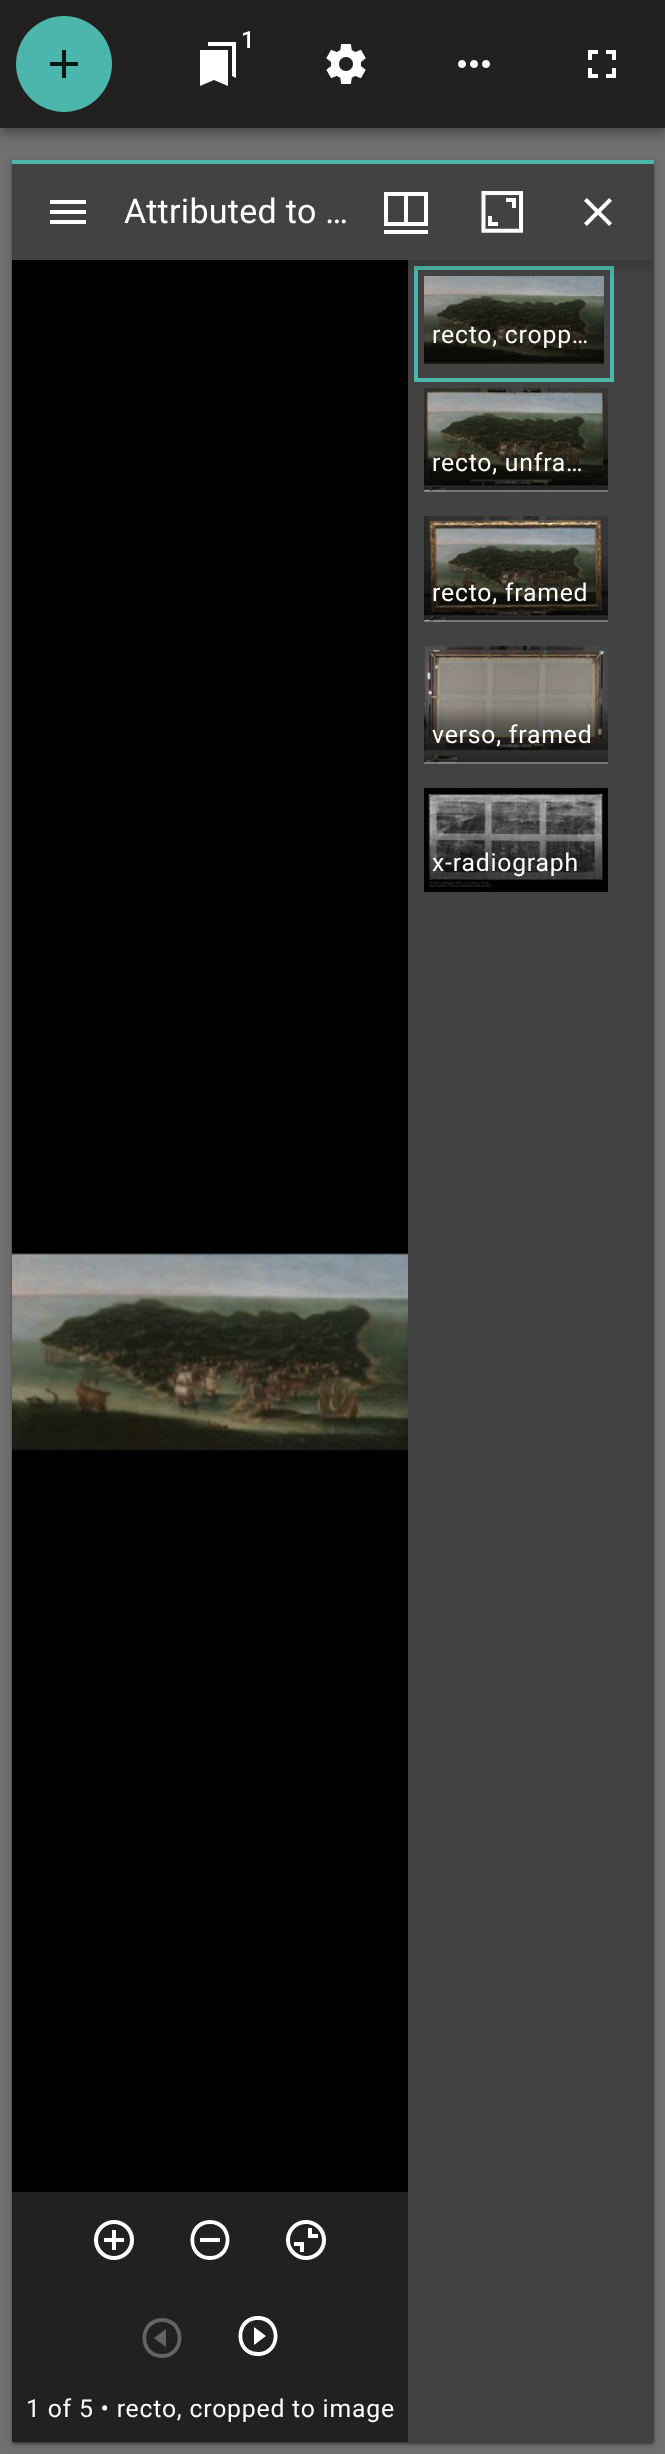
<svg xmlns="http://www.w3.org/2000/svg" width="665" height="2454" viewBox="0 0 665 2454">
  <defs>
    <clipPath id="clip1"><path d="M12 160h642v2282H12z"/></clipPath>
  </defs>
  <rect width="100%" height="100%" fill="#707070"/>
  <path d="M14 166h638v2278H14z" fill="#00000033" filter="blur(1px)"/>
  <path d="M12 162h642v2282H12z" fill="#00000033" filter="blur(1px)"/>
  <path d="M12 162h642v2282H12z" fill="#00000033" filter="blur(3px)"/>
  <path d="M12 260h396v1932H12z" fill="#000"/>
  <path d="M408 260h246v2182H408z" fill="#424242"/>
  <path d="M416 268h196v112H416z" fill="none" stroke="#4db6ac" stroke-width="4"/>
  <image x="424" y="276" width="180" height="88" href="img/7.png"/>
  <g clip-path="url(#clip1)">
    <path d="M12 168h642v100H12z" fill="#00000024" filter="blur(5px)"/>
  </g>
  <path d="M12 160h642v4H12z" fill="#4db6ac"/>
  <path d="M0 2h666v128H0z" fill="#0000001f" filter="blur(10px)"/>
  <path d="M0 8h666v128H0z" fill="#00000024" filter="blur(5px)"/>
  <path d="M2 6h662v124H2z" fill="#00000033" filter="blur(4px)"/>
  <path d="M0 0h665v128H0z" fill="#212121"/>
  <circle cx="64" cy="64" r="48" fill="#4db6ac"/>
  <image x="50" y="50" width="28" height="28" href="img/1.png"/>
  <path d="M232 76L236 78V42H208V46H232ZM228 50H200V86L214 80L228 86Z" fill="#fff"/>
  <image x="326" y="44" width="40" height="40" href="img/2.png"/>
  <image x="458" y="60" width="32" height="8" href="img/3.png"/>
  <image x="588" y="50" width="28" height="28" href="img/4.png"/>
  <path d="M12 164h642v96H12z" fill="#424242"/>
  <path d="M50 224H86V220H50ZM50 214H86V210H50ZM50 200V204H86V200Z" fill="#fff"/>
  <path d="M384 230h44v4H384z" fill="#fff"/>
  <path d="M384 192V226H428V192ZM388 222V196H404V222ZM424 222H408V196H424Z" fill="#fff"/>
  <image x="481" y="191" width="43" height="42" href="img/5.png"/>
  <image x="584" y="198" width="28" height="28" href="img/6.png"/>
  <image x="424" y="388" width="184" height="104" href="img/8.png"/>
  <image x="424" y="516" width="184" height="106" href="img/9.png"/>
  <image x="424" y="646" width="184" height="118" href="img/10.png"/>
  <image x="424" y="788" width="184" height="104" href="img/11.png"/>
  <image x="12" y="1253" width="396" height="198" href="img/12.png"/>
  <path d="M12 2192h396v250H12z" fill="#212121"/>
  <image x="94" y="2220" width="40" height="40" href="img/13.png"/>
  <path d="M200 2238V2242H220V2238ZM210 2220C184 2220 184 2260 210 2260C236 2260 236 2220 210 2220ZM210 2256C189 2256 189 2224 210 2224C231 2224 231 2256 210 2256Z" fill="#fff"/>
  <image x="286" y="2220" width="40" height="40" href="img/14.png"/>
  <path d="M166 2329L154 2338L166 2347ZM162 2358C188 2358 188 2318 162 2318C136 2318 136 2358 162 2358ZM162 2322C183 2322 183 2354 162 2354C141 2354 141 2322 162 2322Z" fill="#646464"/>
  <path d="M254 2345L266 2336L254 2327ZM258 2316C232 2316 232 2356 258 2356C284 2356 284 2316 258 2316ZM258 2352C237 2352 237 2320 258 2320C279 2320 279 2352 258 2352Z" fill="#fff"/>
  <text x="241" y="48" font-family="Roboto" font-size="24" font-weight="500" fill="#fff">1</text>
  <text x="124" y="223" font-family="Roboto" font-size="34" letter-spacing="0.3" fill="#fff">Attributed to …</text>
  <g font-family="Roboto" font-size="24.75" letter-spacing="0.8" fill="#fff">
    <text x="432" y="343">recto, cropp…</text>
    <text x="432" y="471">recto, unfra…</text>
    <text x="432" y="601">recto, framed</text>
    <text x="432" y="743">verso, framed</text>
    <text x="432" y="871">x-radiograph</text>
    <text x="26" y="2417">1 of 5 • recto, cropped to image</text>
  </g>
</svg>
